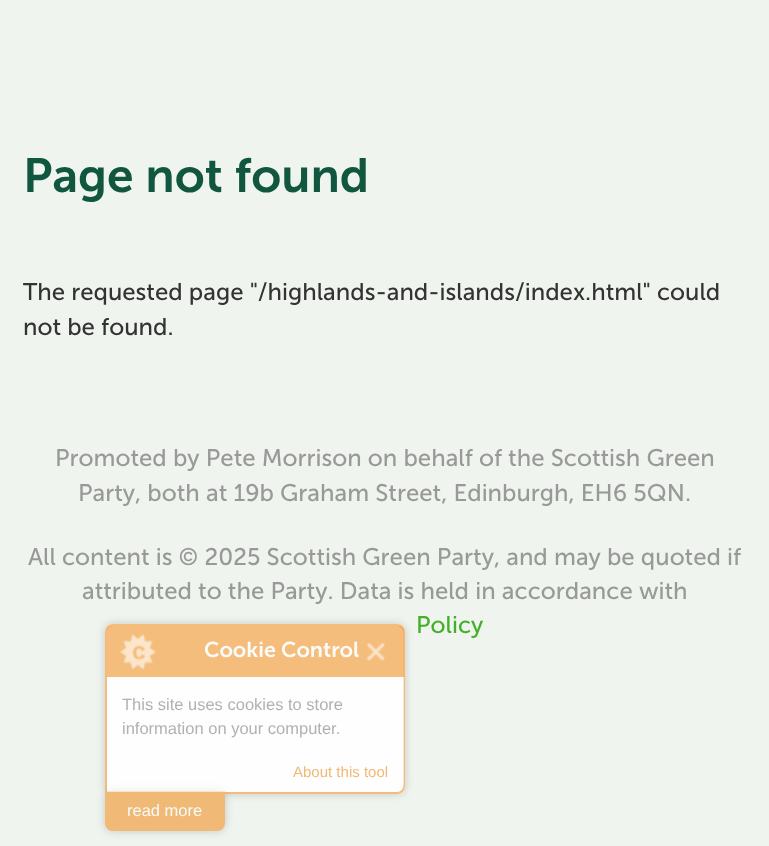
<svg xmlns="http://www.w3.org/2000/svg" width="769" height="846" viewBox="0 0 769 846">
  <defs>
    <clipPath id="clip1"><path d="M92 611H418V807H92ZM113 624H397C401.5 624 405 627.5 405 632V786C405 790.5 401.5 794 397 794H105V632C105 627.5 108.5 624 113 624Z" clip-rule="evenodd"/></clipPath>
  </defs>
  <rect width="100%" height="100%" fill="#f0f4ef"/>
  <g clip-path="url(#clip1)">
    <rect x="105" y="624" width="300" height="170" rx="8" fill="#0000002e" filter="blur(4px)"/>
  </g>
  <path d="M113 624H397C401.5 624 405 627.5 405 632V786C405 790.5 401.5 794 397 794H105V632C105 627.5 108.5 624 113 624Z" fill="#ffffff9e"/>
  <path d="M113 625H397C401 625 404 628 404 632V786C404 790 401 793 397 793H106V632C106 628 109 625 113 625Z" fill="none" stroke="#f0942b9e" stroke-width="2"/>
  <rect x="105" y="791" width="120" height="40" rx="8" fill="#5c5e5c4d" filter="blur(4px)"/>
  <path d="M105 791H225V823C225 827.5 221.5 831 217 831H113C108.5 831 105 827.5 105 823Z" fill="#f0b976"/>
  <path d="M115 626H396C400.5 626 404 629.5 404 634V784C404 788.5 400.5 792 396 792H107V634C107 629.5 110.5 626 115 626Z" fill="#ffffff9e"/>
  <path d="M112 626H399C402 626 404 628 404 631V677H107V631C107 628 109 626 112 626Z" fill="#f0942b9e"/>
  <image x="120" y="634" width="37" height="36" href="img/1.png"/>
  <image x="367" y="642" width="18" height="19" href="img/2.png"/>
  <text x="23" y="192" font-family="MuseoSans" font-size="48" fill="#115740">Page not found</text>
  <g font-family="'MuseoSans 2'" font-size="24" fill="#333">
    <text x="23" y="300">The requested page "/highlands-and-islands/index.html" could</text>
    <text x="23" y="335">not be found.</text>
  </g>
  <g font-family="'MuseoSans 2'" font-size="24" fill="#999">
    <text x="55" y="466">Promoted by Pete Morrison on behalf of the Scottish Green</text>
    <text x="78" y="501">Party, both at 19b Graham Street, Edinburgh, EH6 5QN.</text>
    <text x="28" y="565">All content is © 2025 Scottish Green Party, and may be quoted if</text>
    <text x="82" y="599">attributed to the Party. Data is held in accordance with</text>
  </g>
  <text x="416" y="633" font-family="'MuseoSans 2'" font-size="24" fill="#43b02a">Policy</text>
  <text x="204" y="657" font-family="MuseoSans" font-size="21.5" fill="#f9fbf9">Cookie Control</text>
  <g font-family="Liberation Sans" font-size="16.5" fill="#b0b2b0">
    <text x="122" y="710">This site uses cookies to store</text>
    <text x="122" y="734">information on your computer.</text>
  </g>
  <text x="293" y="777" font-family="Liberation Sans" font-size="15" fill="#f0b976">About this tool</text>
  <text x="127" y="816" font-family="Liberation Sans" font-size="16.5" fill="#f9fbf9">read more</text>
</svg>
